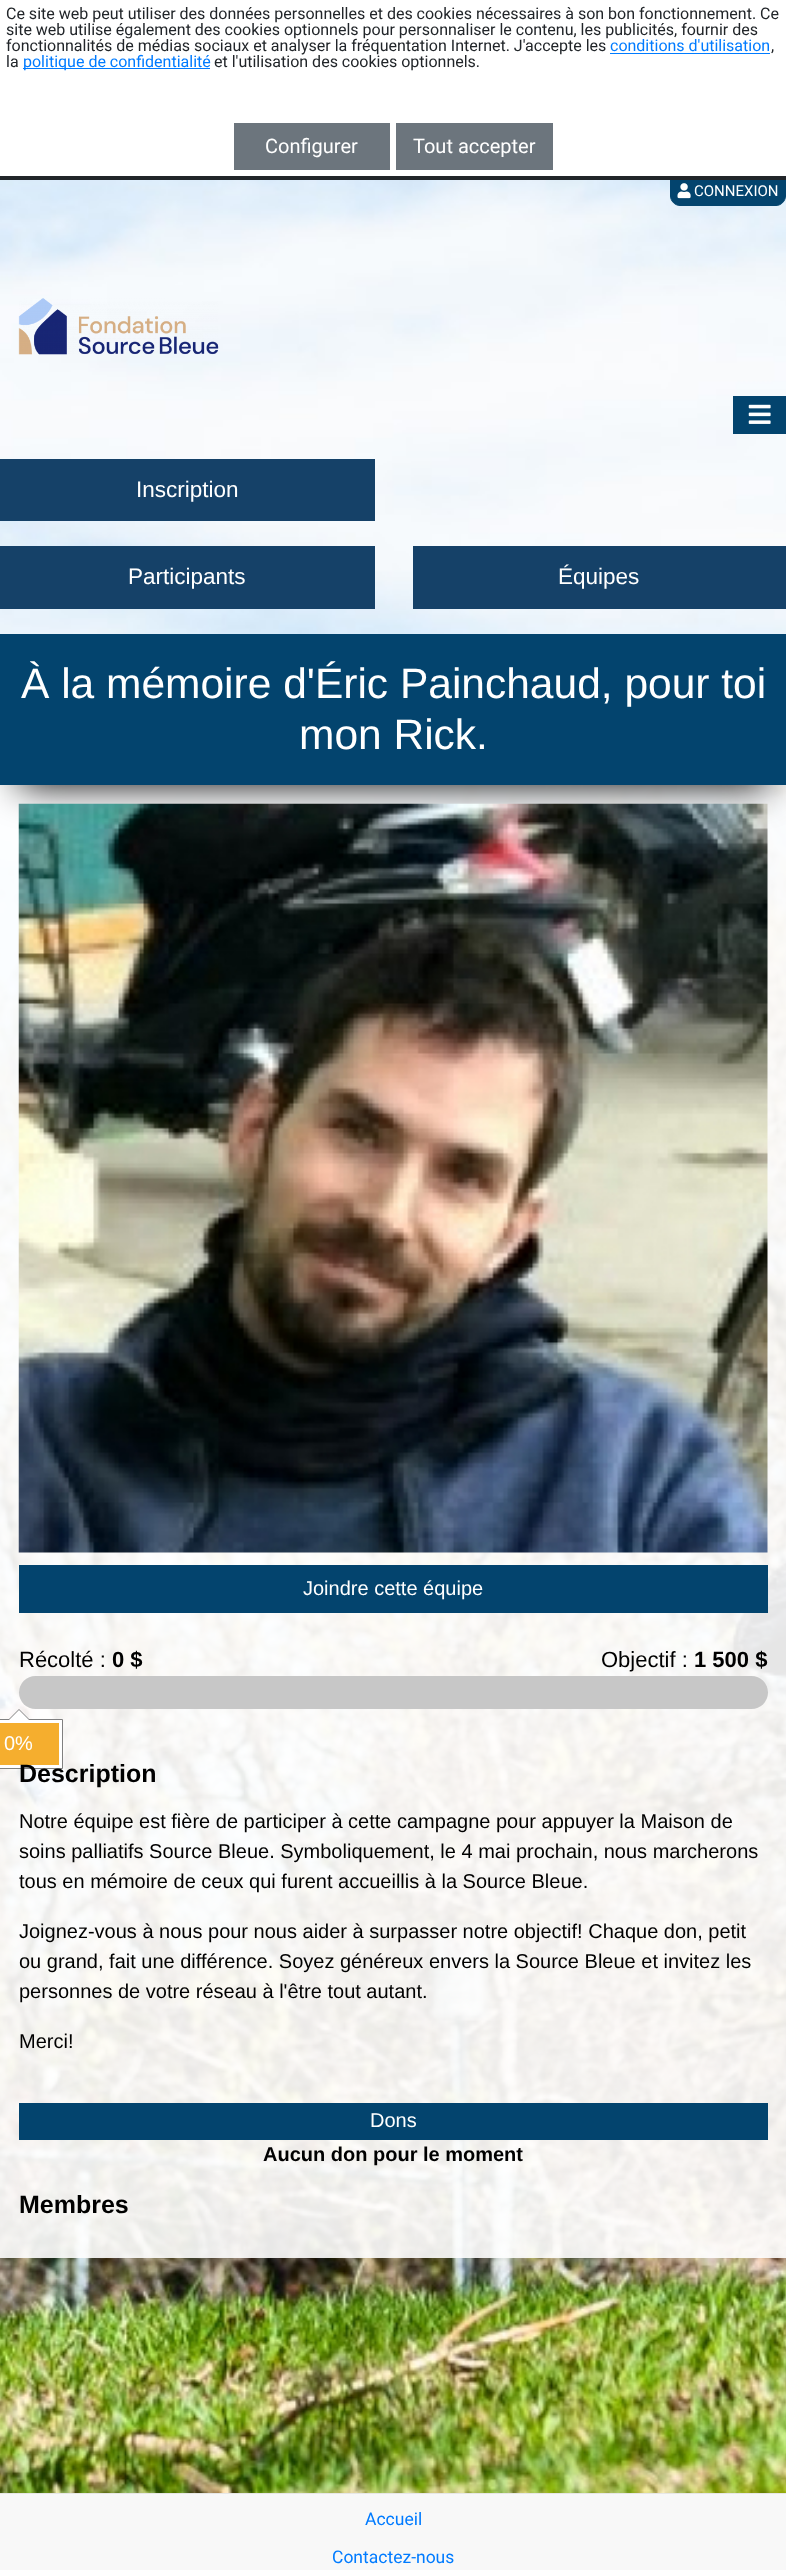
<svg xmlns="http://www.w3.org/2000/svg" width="786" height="2570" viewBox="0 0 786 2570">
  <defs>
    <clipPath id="clip1"><path d="M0 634h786v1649H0z"/></clipPath>
  </defs>
  <rect width="100%" height="100%" fill="#fff"/>
  <image x="0" y="180" width="786" height="2313" href="img/1.png"/>
  <path d="M670.5 176.5H785.5V196C785.5 201 781 205.5 776 205.5H680C675 205.5 670.5 201 670.5 196Z" fill="#03446e" stroke="#03446e"/>
  <path d="M0 176h786v4H0z" fill="#212529"/>
  <path d="M610 53h160v1H610z" fill="#007bff"/>
  <path d="M23 68h187v1H23z" fill="#007bff"/>
  <path d="M234 123h156v47H234z" fill="#6c757d"/>
  <path d="M396 123h157v47H396z" fill="#6c757d"/>
  <image x="677" y="183" width="14" height="16" href="img/2.png"/>
  <image x="18" y="298" width="201" height="57" href="img/3.png"/>
  <path d="M733 396h53v38H733z" fill="#03446e"/>
  <image x="748" y="404" width="23" height="20" href="img/4.png"/>
  <path d="M0 459h375v62H0z" fill="#154168"/>
  <path d="M0 546h375v63H0z" fill="#154168"/>
  <path d="M413 546h373v63H413z" fill="#154168"/>
  <path d="M0 785h786v1473H0z" fill="#ffffffe6"/>
  <g clip-path="url(#clip1)">
    <path d="M19 671h749v114H19z" fill="#000" filter="blur(19px)"/>
  </g>
  <path d="M0 634h786v151H0z" fill="#03446e"/>
  <image x="18" y="803" width="750" height="750" href="img/5.png"/>
  <path d="M19 1565h749v48H19z" fill="#03446e"/>
  <rect x="19" y="1676" width="749" height="33" rx="16.5" fill="#c7c7c7"/>
  <path d="M29 1719H9L19 1709Z" fill="#808080"/>
  <path d="M-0.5 1719.5h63v49H-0.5z" fill="#fff" stroke="#808080"/>
  <path d="M29 1720H9L19 1710Z" fill="#fff"/>
  <path d="M0 1723h59v42H0z" fill="#f5ae2e"/>
  <path d="M19 2103h749v37H19z" fill="#03446e"/>
  <path d="M0 2494h786v76H0z" fill="#f8f8f8"/>
  <path d="M0 2493h786v1H0z" fill="#e7e7e7"/>
  <g font-family="Roboto" font-size="16" fill="#212529">
    <text x="6" y="19">Ce site web peut utiliser des données personnelles et des cookies nécessaires à son bon fonctionnement. Ce</text>
    <text x="6" y="35">site web utilise également des cookies optionnels pour personnaliser le contenu, les publicités, fournir des</text>
    <text x="6" y="51">fonctionnalités de médias sociaux et analyser la fréquentation Internet. J'accepte les</text>
  </g>
  <text x="610" y="51" font-family="Roboto" font-size="16" fill="#007bff">conditions d'utilisation</text>
  <g font-family="Roboto" font-size="16" fill="#212529">
    <text x="771" y="51">,</text>
    <text x="6" y="67">la</text>
  </g>
  <text x="23" y="67" font-family="Roboto" font-size="16" fill="#007bff">politique de confidentialité</text>
  <text x="214" y="67" font-family="Roboto" font-size="16" fill="#212529">et l'utilisation des cookies optionnels.</text>
  <g font-family="Roboto" font-size="20" fill="#fff">
    <text x="265" y="153">Configurer</text>
    <text x="413" y="153">Tout accepter</text>
  </g>
  <text x="694" y="196" font-family="Roboto" font-size="15" fill="#fff">CONNEXION</text>
  <g font-family="Liberation Sans" font-size="22.5" fill="#fff">
    <text x="136" y="497">Inscription</text>
    <text x="128" y="584">Participants</text>
    <text x="558" y="584">Équipes</text>
  </g>
  <g font-family="Liberation Sans" font-size="42.5" fill="#fff">
    <text x="21" y="698">À la mémoire d'Éric Painchaud, pour toi</text>
    <text x="299" y="749">mon Rick.</text>
  </g>
  <text x="303" y="1595" font-family="Liberation Sans" font-size="20" fill="#fff">Joindre cette équipe</text>
  <text x="19" y="1667" font-family="Liberation Sans" font-size="22" fill="#000">Récolté :</text>
  <text x="112" y="1667" font-family="Liberation Sans" font-size="22" font-weight="bold" fill="#000">0 $</text>
  <text x="601" y="1667" font-family="Liberation Sans" font-size="22" fill="#000">Objectif :</text>
  <text x="694" y="1667" font-family="Liberation Sans" font-size="22" font-weight="bold" fill="#000">1 500 $</text>
  <text x="4" y="1750" font-family="Liberation Sans" font-size="20" fill="#fff">0%</text>
  <text x="19" y="1782" font-family="Liberation Sans" font-size="25" font-weight="bold" fill="#000">Description</text>
  <g font-family="Liberation Sans" font-size="20" fill="#000">
    <text x="19" y="1828">Notre équipe est fière de participer à cette campagne pour appuyer la Maison de</text>
    <text x="19" y="1858">soins palliatifs Source Bleue. Symboliquement, le 4 mai prochain, nous marcherons</text>
    <text x="19" y="1888">tous en mémoire de ceux qui furent accueillis à la Source Bleue.</text>
    <text x="19" y="1938">Joignez-vous à nous pour nous aider à surpasser notre objectif! Chaque don, petit</text>
    <text x="19" y="1968">ou grand, fait une différence. Soyez généreux envers la Source Bleue et invitez les</text>
    <text x="19" y="1998">personnes de votre réseau à l'être tout autant.</text>
    <text x="19" y="2048">Merci!</text>
  </g>
  <text x="370" y="2127" font-family="Liberation Sans" font-size="20" fill="#fff">Dons</text>
  <text x="263" y="2161" font-family="Liberation Sans" font-size="20" font-weight="bold" fill="#000">Aucun don pour le moment</text>
  <text x="19" y="2213" font-family="Liberation Sans" font-size="25" font-weight="bold" fill="#000">Membres</text>
  <g font-family="Roboto" font-size="17.5" fill="#007bff">
    <text x="365" y="2525">Accueil</text>
    <text x="332" y="2563">Contactez-nous</text>
  </g>
</svg>
